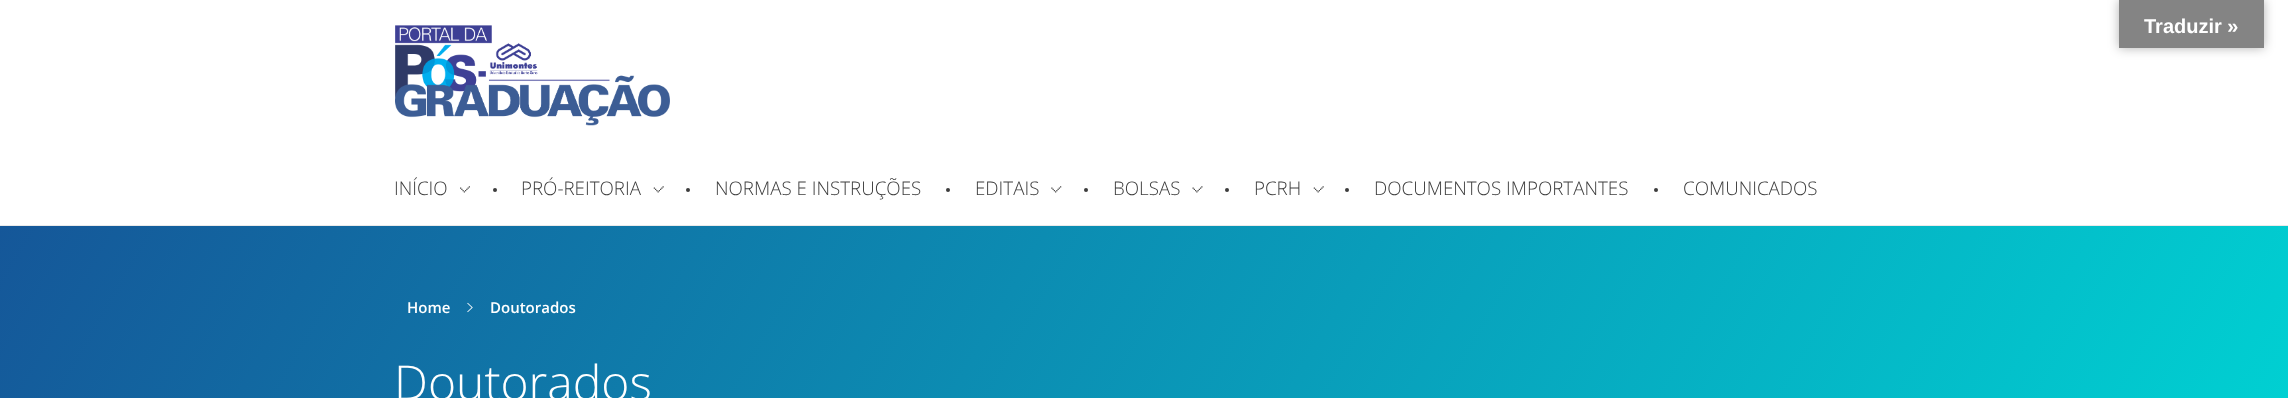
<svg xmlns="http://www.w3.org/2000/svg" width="2288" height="398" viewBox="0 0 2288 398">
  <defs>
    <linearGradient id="g1" gradientUnits="userSpaceOnUse" x1="231" y1="-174" x2="2058" y2="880"><stop offset="0" stop-color="#155799"/><stop offset="1" stop-color="#00d2d3"/></linearGradient>
  </defs>
  <rect width="100%" height="100%" fill="#fff"/>
  <path d="M2119 0h145v48H2119z" fill="#0000004d" filter="blur(5.5px)"/>
  <path d="M2119 0h145v48H2119z" fill="#848484"/>
  <path d="M0 225h2288v1H0z" fill="#eaeaea"/>
  <image x="395" y="25" width="275" height="101" href="img/1.png"/>
  <image x="460" y="186" width="10" height="7" href="img/2.png"/>
  <circle cx="495" cy="190" r="2" fill="#3d3d3d"/>
  <image x="653" y="186" width="11" height="7" href="img/3.png"/>
  <circle cx="688" cy="190" r="2" fill="#3d3d3d"/>
  <circle cx="948" cy="190" r="2" fill="#3d3d3d"/>
  <image x="1051" y="186" width="11" height="7" href="img/4.png"/>
  <circle cx="1086" cy="190" r="2" fill="#3d3d3d"/>
  <image x="1192" y="186" width="11" height="7" href="img/5.png"/>
  <circle cx="1227" cy="190" r="2" fill="#3d3d3d"/>
  <image x="1313" y="186" width="11" height="7" href="img/3.png"/>
  <circle cx="1347" cy="190" r="2" fill="#3d3d3d"/>
  <circle cx="1656" cy="190" r="2" fill="#3d3d3d"/>
  <path d="M0 226h2288v172H0z" fill="url(#g1)"/>
  <image x="467" y="302" width="6" height="11" href="img/6.png"/>
  <text x="2144" y="33" font-family="Liberation Sans" font-size="20" font-weight="bold" fill="#fff">Traduzir »</text>
  <g font-family="Open Sans" font-size="18.75" font-weight="300" fill="#3d3d3d">
    <text x="394" y="195">INÍCIO</text>
    <text x="521" y="195">PRÓ-REITORIA</text>
    <text x="715" y="195">NORMAS E INSTRUÇÕES</text>
    <text x="975" y="195">EDITAIS</text>
    <text x="1113" y="195">BOLSAS</text>
    <text x="1254" y="195">PCRH</text>
    <text x="1374" y="195">DOCUMENTOS IMPORTANTES</text>
    <text x="1683" y="195">COMUNICADOS</text>
  </g>
  <g font-family="Open Sans" font-size="15" font-weight="600" fill="#fff">
    <text x="407" y="313">Home</text>
    <text x="490" y="313">Doutorados</text>
  </g>
  <text x="394" y="400" font-family="Open Sans" font-size="48" font-weight="300" fill="#fff">Doutorados</text>
</svg>
